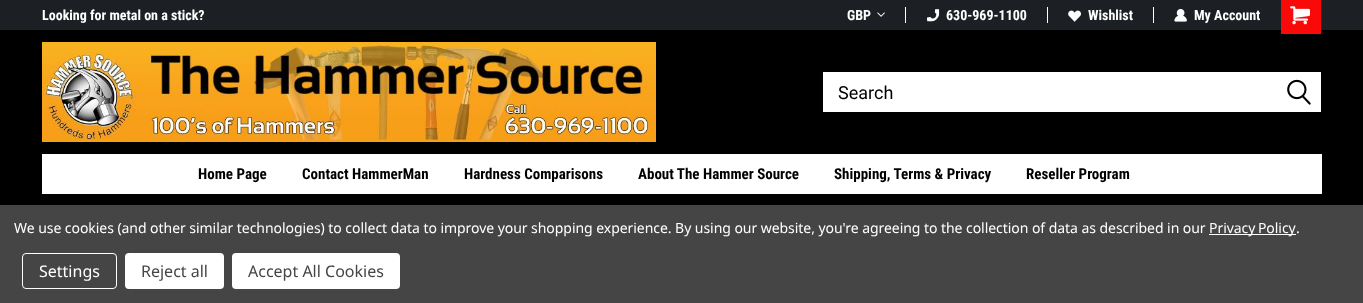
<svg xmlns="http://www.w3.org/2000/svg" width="1363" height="303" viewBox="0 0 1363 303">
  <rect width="100%" height="100%" fill="#000"/>
  <path d="M0 0h1363v30H0z" fill="#1c1f24"/>
  <path d="M905 7h1v16H905z" fill="#fff"/>
  <image x="877" y="12" width="8" height="5" href="img/1.png"/>
  <path d="M1047 7h1v16H1047z" fill="#fff"/>
  <image x="927" y="9" width="13" height="13" href="img/2.png"/>
  <path d="M1153 7h1v16H1153z" fill="#fff"/>
  <image x="1068" y="10" width="13" height="12" href="img/3.png"/>
  <image x="1174" y="9" width="13" height="13" href="img/4.png"/>
  <path d="M1281 0h40v34H1281z" fill="#fa0909"/>
  <image x="1290" y="6" width="20" height="19" href="img/5.png"/>
  <image x="42" y="42" width="614" height="100" href="img/6.png"/>
  <path d="M823 72h498v40H823z" fill="#fff"/>
  <image x="1287" y="79" width="24" height="26" href="img/7.png"/>
  <path d="M42 154h1280v40H42z" fill="#fff"/>
  <path d="M0 205h1363v98H0z" fill="#454545"/>
  <path d="M1209 234h87v1H1209z" fill="#fff"/>
  <rect x="22.5" y="253.5" width="94" height="35" rx="3.5" fill="none" stroke="#fff"/>
  <rect x="125" y="253" width="99" height="36" rx="4" fill="#fff"/>
  <rect x="232" y="253" width="168" height="36" rx="4" fill="#fff"/>
  <g font-family="Roboto Condensed" font-size="14" font-weight="bold" fill="#fff">
    <text x="42" y="20">Looking for metal on a stick?</text>
    <text x="847" y="20">GBP</text>
    <text x="946" y="20">630-969-1100</text>
    <text x="1088" y="20">Wishlist</text>
    <text x="1194" y="20">My Account</text>
  </g>
  <text x="838" y="99" font-family="Roboto" font-size="18" fill="#000">Search</text>
  <g font-family="Roboto Condensed" font-size="15" font-weight="bold" fill="#000">
    <text x="198" y="179">Home Page</text>
    <text x="302" y="179">Contact HammerMan</text>
    <text x="464" y="179">Hardness Comparisons</text>
    <text x="638" y="179">About The Hammer Source</text>
    <text x="834" y="179">Shipping, Terms &amp; Privacy</text>
    <text x="1026" y="179">Reseller Program</text>
  </g>
  <g font-family="Noto Sans" font-size="14" letter-spacing="-0.05" fill="#fff">
    <text x="14" y="233">We use cookies (and other similar technologies) to collect data to improve your shopping experience. By using our website, you're agreeing to the collection of data as described in our</text>
    <text x="1209" y="233" word-spacing="-1">Privacy Policy</text>
    <text x="1296" y="233">.</text>
  </g>
  <text x="39" y="277" font-family="Noto Sans" font-size="16" fill="#fff">Settings</text>
  <g font-family="Noto Sans" font-size="16" fill="#454545">
    <text x="141" y="277">Reject all</text>
    <text x="248" y="277">Accept All Cookies</text>
  </g>
</svg>
